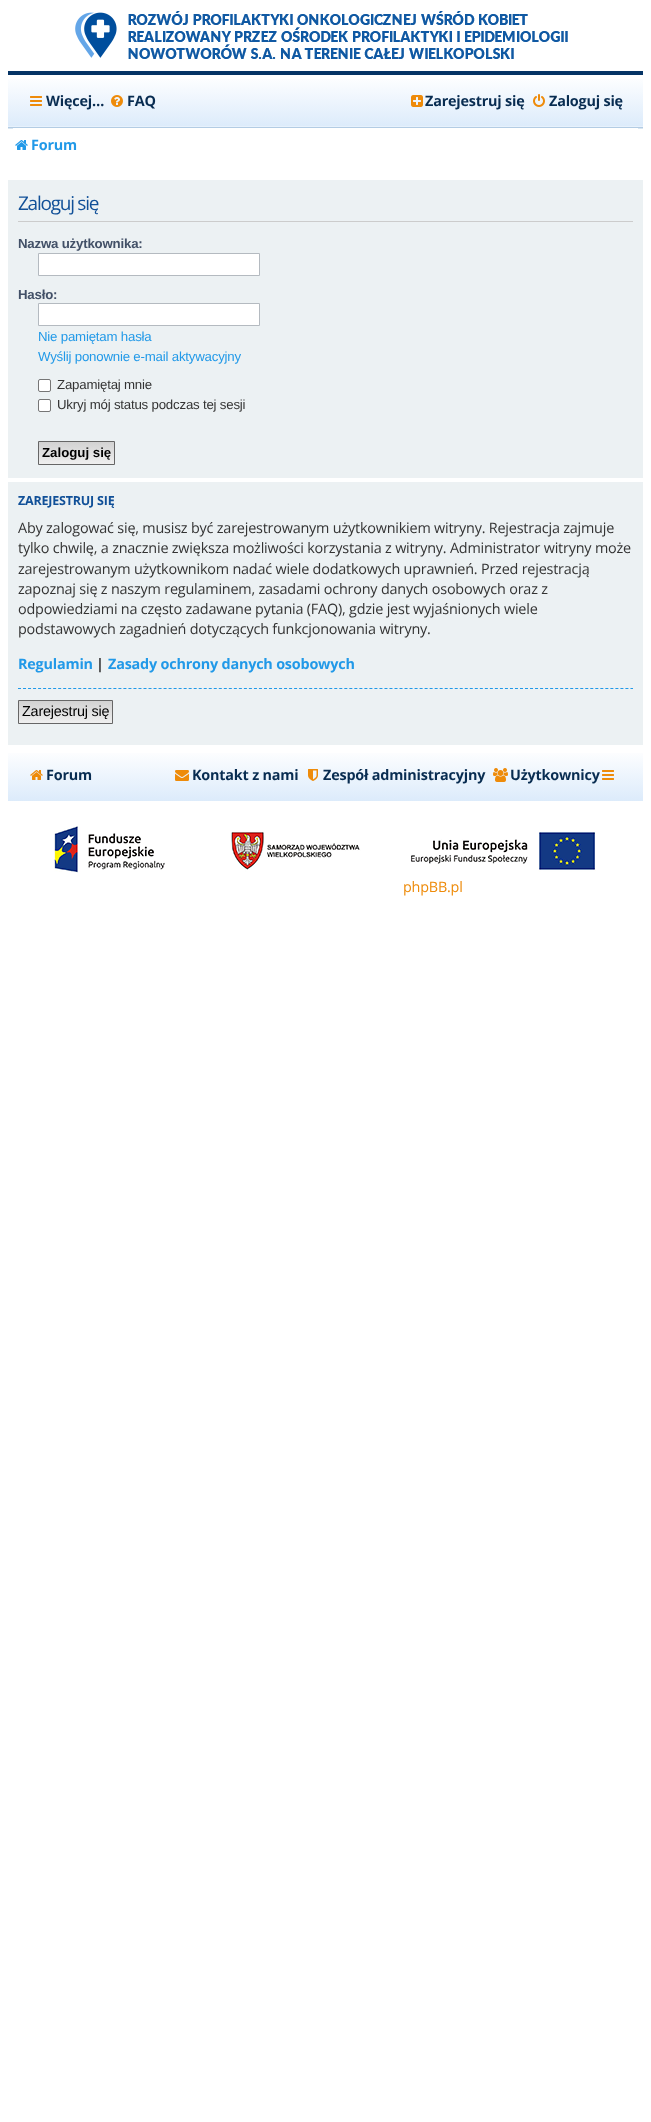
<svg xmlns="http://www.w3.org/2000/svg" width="651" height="2122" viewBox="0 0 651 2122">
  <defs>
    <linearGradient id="g1" gradientUnits="userSpaceOnUse" x1="326" y1="127" x2="326" y2="75"><stop offset="0" stop-color="#dcebfb"/><stop offset="1" stop-color="#fff"/></linearGradient>
    <linearGradient id="g2" gradientUnits="userSpaceOnUse" x1="77" y1="442" x2="77" y2="464"><stop offset="0" stop-color="#d2d2d2"/><stop offset="1" stop-color="#efefef"/></linearGradient>
    <linearGradient id="g3" gradientUnits="userSpaceOnUse" x1="66" y1="701" x2="66" y2="723"><stop offset="0" stop-color="#d2d2d2"/><stop offset="1" stop-color="#efefef"/></linearGradient>
    <linearGradient id="g4" gradientUnits="userSpaceOnUse" x1="326" y1="801" x2="326" y2="749"><stop offset="0" stop-color="#dcebfb"/><stop offset="1" stop-color="#fff"/></linearGradient>
  </defs>
  <rect width="100%" height="100%" fill="#fff"/>
  <image x="75" y="11" width="493" height="48" href="img/1.png"/>
  <path d="M8 128h635v1H8z" fill="#d9e6f1"/>
  <path d="M8 79h635v47H8z" fill="url(#g1)"/>
  <path d="M8 126h635v1H8z" fill="#e7f1fc"/>
  <path d="M8 71h635v4H8z" fill="#063465"/>
  <path d="M8 127h635v1H8z" fill="#b3cce4"/>
  <image x="30" y="96" width="12" height="10" href="img/2.png"/>
  <image x="111" y="95" width="12" height="12" href="img/3.png"/>
  <image x="411" y="95" width="12" height="12" href="img/4.png"/>
  <image x="533" y="94" width="12" height="13" href="img/5.png"/>
  <path d="M13 128h625v1H13z" fill="#fff"/>
  <image x="15" y="140" width="13" height="10" href="img/6.png"/>
  <path d="M8 180h635v298H8z" fill="#ecf1f3"/>
  <path d="M18 221h615v1H18z" fill="#ccc"/>
  <path d="M38.5 253.5h221v22H38.5z" fill="#fff" stroke="#b4bac0"/>
  <path d="M38.5 303.5h221v22H38.5z" fill="#fff" stroke="#b4bac0"/>
  <rect x="38.5" y="379.5" width="12" height="12" rx="1.5" fill="#fff" stroke="#767676"/>
  <rect x="38.5" y="399.5" width="12" height="12" rx="1.5" fill="#fff" stroke="#767676"/>
  <path d="M39 442h75v22H39z" fill="url(#g2)"/>
  <path d="M38.5 441.5h76v23H38.5z" fill="none" stroke="#666"/>
  <path d="M8 482h635v263H8z" fill="#ecf1f3"/>
  <path d="M18 688.5H633" fill="none" stroke="#2199e8" stroke-dasharray="3 2.02"/>
  <path d="M19 701h93v22H19z" fill="url(#g3)"/>
  <path d="M18.5 700.5h94v23H18.5z" fill="none" stroke="#666"/>
  <path d="M8 753h635v48H8z" fill="url(#g4)"/>
  <image x="30" y="770" width="13" height="10" href="img/7.png"/>
  <image x="175" y="770" width="14" height="11" href="img/8.png"/>
  <image x="308" y="769" width="10" height="12" href="img/9.png"/>
  <image x="493" y="768" width="15" height="14" href="img/10.png"/>
  <image x="602" y="770" width="12" height="10" href="img/2.png"/>
  <image x="54" y="826" width="542" height="47" href="img/11.png"/>
  <g font-family="Open Sans" font-size="14.4" font-weight="bold" letter-spacing="-0.2" fill="#082c51">
    <text x="46" y="106">Więcej…</text>
    <text x="127" y="106">FAQ</text>
    <text x="425" y="106">Zarejestruj się</text>
    <text x="549" y="106">Zaloguj się</text>
  </g>
  <text x="31" y="150" font-family="Open Sans" font-size="14.4" font-weight="bold" letter-spacing="-0.2" fill="#2199e8">Forum</text>
  <text x="18" y="210" font-family="Open Sans" font-size="19" letter-spacing="-1.25" fill="#115098">Zaloguj się</text>
  <g font-family="Liberation Sans" font-size="13.25" font-weight="bold" letter-spacing="-0.2" fill="#425067">
    <text x="18" y="248">Nazwa użytkownika:</text>
    <text x="18" y="299">Hasło:</text>
  </g>
  <g font-family="Liberation Sans" font-size="13.25" letter-spacing="-0.2" fill="#2199e8">
    <text x="38" y="341">Nie pamiętam hasła</text>
    <text x="38" y="361">Wyślij ponownie e-mail aktywacyjny</text>
  </g>
  <g font-family="Liberation Sans" font-size="13.25" letter-spacing="-0.2" fill="#333">
    <text x="57" y="389">Zapamiętaj mnie</text>
    <text x="57" y="409">Ukryj mój status podczas tej sesji</text>
  </g>
  <text x="42" y="457" font-family="Liberation Sans" font-size="13.25" font-weight="bold" fill="#000">Zaloguj się</text>
  <text x="18" y="505" font-family="Open Sans" font-size="12.5" font-weight="bold" letter-spacing="-0.2" fill="#115098">ZAREJESTRUJ SIĘ</text>
  <g font-family="Open Sans" font-size="14.4" letter-spacing="-0.2" fill="#333">
    <text x="18" y="533">Aby zalogować się, musisz być zarejestrowanym użytkownikiem witryny. Rejestracja zajmuje</text>
    <text x="18" y="553">tylko chwilę, a znacznie zwiększa możliwości korzystania z witryny. Administrator witryny może</text>
    <text x="18" y="574">zarejestrowanym użytkownikom nadać wiele dodatkowych uprawnień. Przed rejestracją</text>
    <text x="18" y="594">zapoznaj się z naszym regulaminem, zasadami ochrony danych osobowych oraz z</text>
    <text x="18" y="614">odpowiedziami na często zadawane pytania (FAQ), gdzie jest wyjaśnionych wiele</text>
    <text x="18" y="634">podstawowych zagadnień dotyczących funkcjonowania witryny.</text>
  </g>
  <text x="18" y="669" font-family="Open Sans" font-size="14.4" font-weight="bold" letter-spacing="-0.2" fill="#2199e8">Regulamin</text>
  <text x="96" y="669" font-family="Open Sans" font-size="14.4" font-weight="bold" letter-spacing="-0.2" fill="#333">|</text>
  <text x="108" y="669" font-family="Open Sans" font-size="14.4" font-weight="bold" letter-spacing="-0.2" fill="#2199e8">Zasady ochrony danych osobowych</text>
  <text x="22" y="716" font-family="Liberation Sans" font-size="14.4" letter-spacing="-0.2" fill="#000">Zarejestruj się</text>
  <g font-family="Open Sans" font-size="14.4" font-weight="bold" letter-spacing="-0.2" fill="#082c51">
    <text x="46" y="780">Forum</text>
    <text x="192" y="780">Kontakt z nami</text>
    <text x="323" y="780">Zespół administracyjny</text>
    <text x="510" y="780">Użytkownicy</text>
  </g>
  <text x="403" y="892" font-family="Open Sans" font-size="14.4" letter-spacing="-0.2" fill="#ee8b0a">phpBB.pl</text>
</svg>
